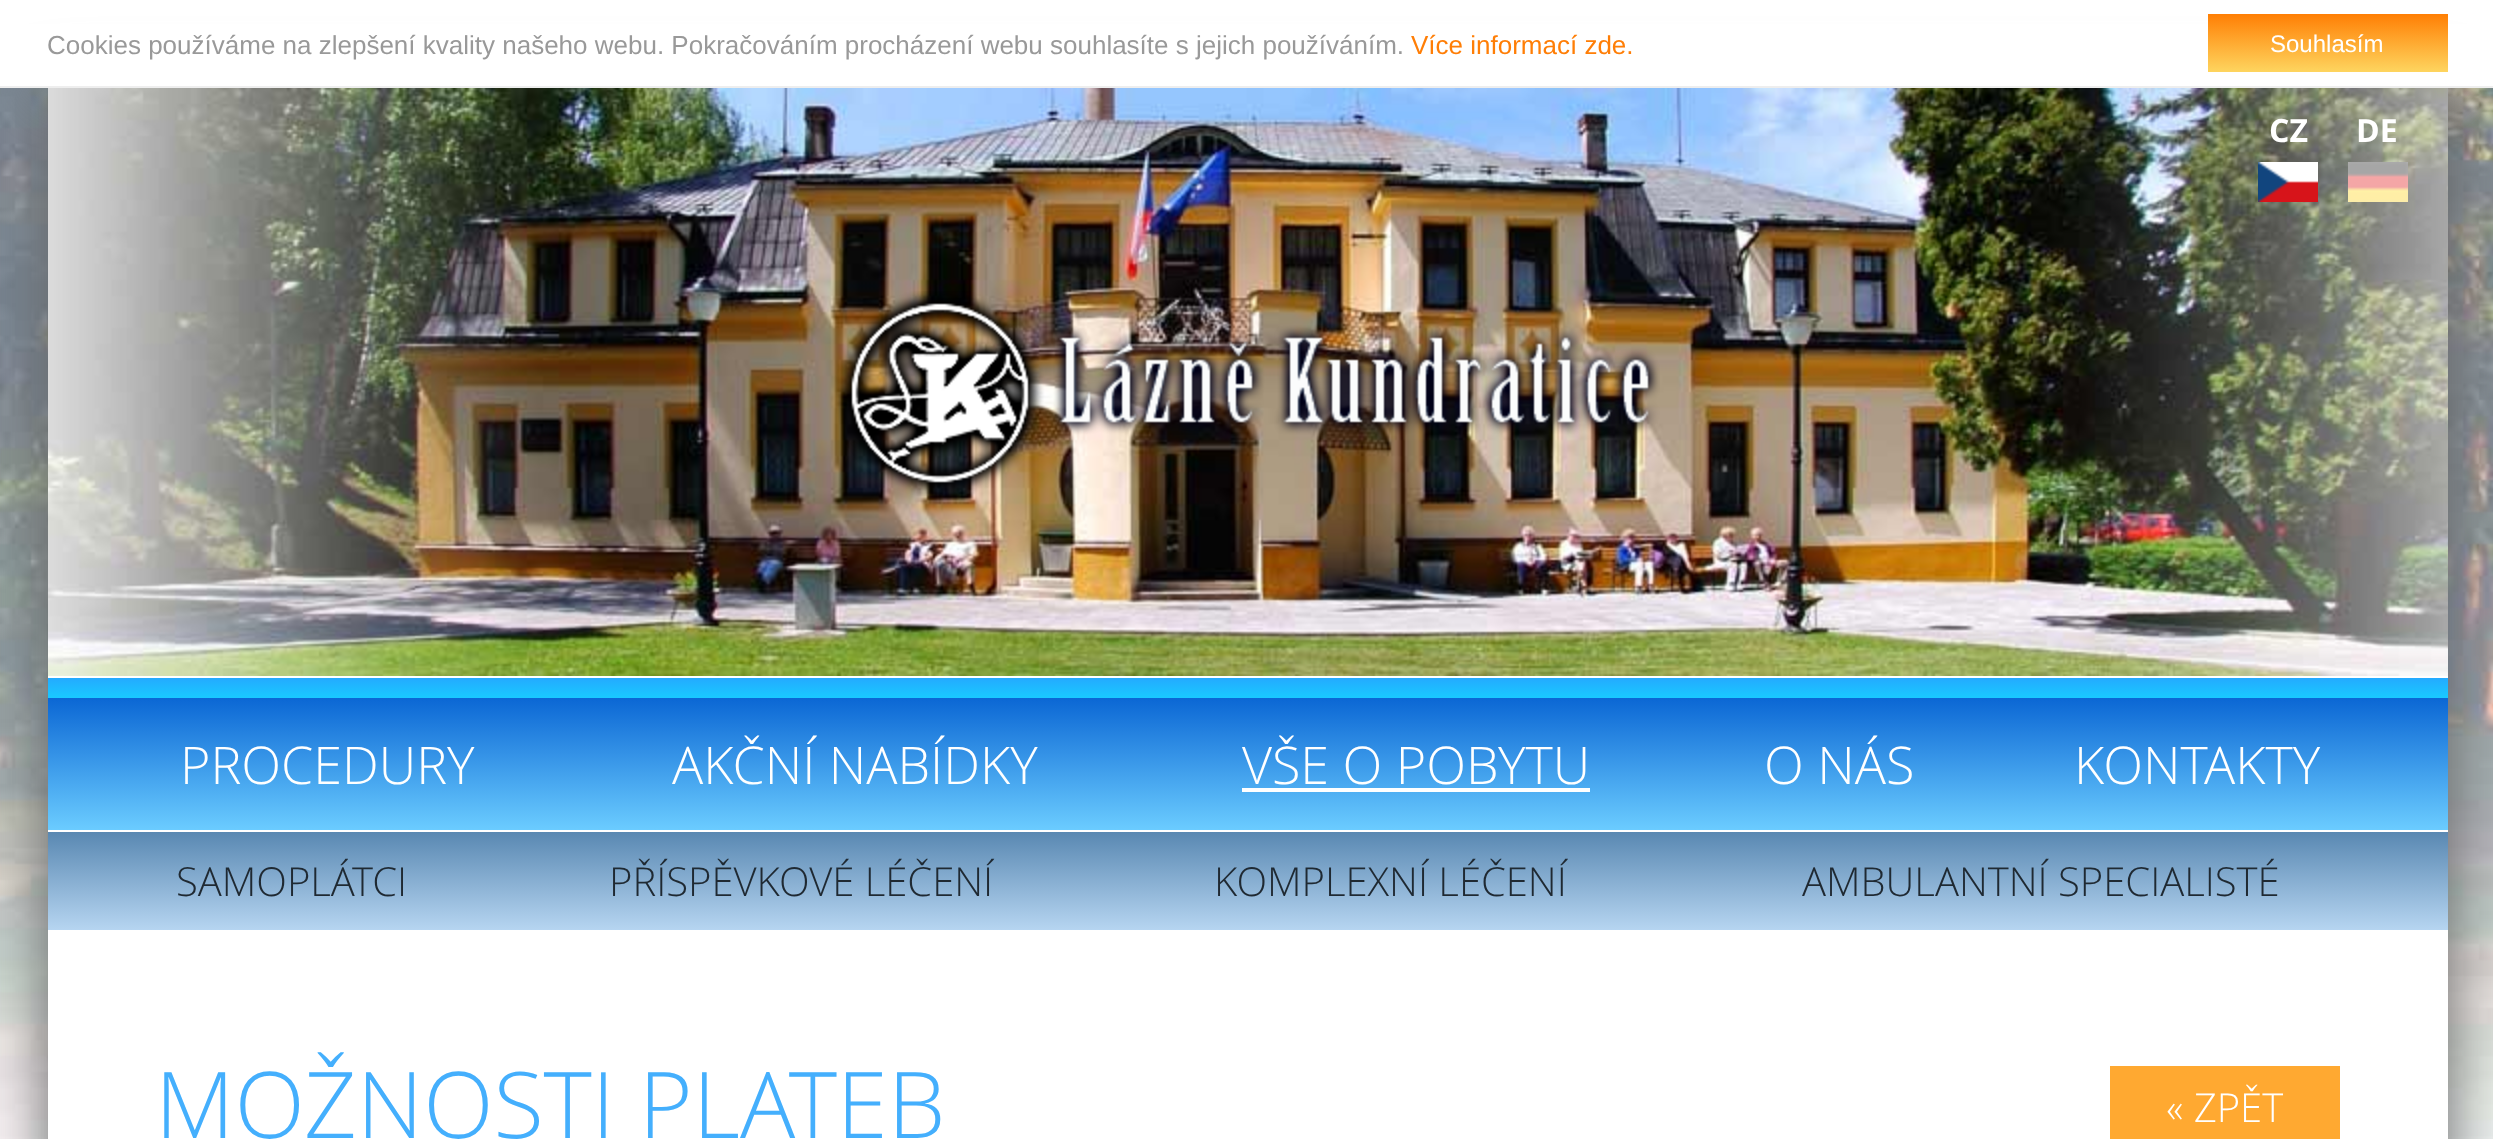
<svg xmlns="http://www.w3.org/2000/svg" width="2493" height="1139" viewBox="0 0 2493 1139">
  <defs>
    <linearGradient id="g1" gradientUnits="userSpaceOnUse" x1="2328" y1="14" x2="2328" y2="72"><stop offset="0" stop-color="#ff7f04"/><stop offset="1" stop-color="#fed55f"/></linearGradient>
    <linearGradient id="g2" gradientUnits="userSpaceOnUse" x1="1248" y1="678" x2="1248" y2="698"><stop offset="0" stop-color="#24aaff"/><stop offset="1" stop-color="#19caff"/></linearGradient>
    <linearGradient id="g3" gradientUnits="userSpaceOnUse" x1="1248" y1="698" x2="1248" y2="830"><stop offset="0" stop-color="#0b67d4"/><stop offset="1" stop-color="#6bccff"/></linearGradient>
    <linearGradient id="g4" gradientUnits="userSpaceOnUse" x1="1248" y1="832" x2="1248" y2="930"><stop offset="0" stop-color="#5988b2"/><stop offset="1" stop-color="#b6d5f1"/></linearGradient>
  </defs>
  <rect width="100%" height="100%" fill="#fff"/>
  <image x="0" y="88" width="2493" height="1051" href="img/1.png"/>
  <path d="M48 88h2400v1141H48z" fill="#666" filter="blur(30px)"/>
  <path d="M0 24h2493v62H0z" fill="#fff"/>
  <path d="M0 86h2493v2H0z" fill="#eee"/>
  <path d="M2208 14h240v58H2208z" fill="url(#g1)"/>
  <path d="M48 676h2400v463H48z" fill="#fff"/>
  <image x="48" y="88" width="2400" height="588" href="img/2.png"/>
  <image x="2258" y="162" width="60" height="40" href="img/3.png"/>
  <image x="2348" y="162" width="60" height="40" href="img/4.png"/>
  <path d="M2348 162h60v40H2348z" fill="#ffffffa6"/>
  <image x="836" y="291" width="824" height="205" href="img/5.png"/>
  <path d="M48 678h2400v20H48z" fill="url(#g2)"/>
  <path d="M48 698h2400v132H48z" fill="url(#g3)"/>
  <path d="M1242 788h348v4H1242z" fill="#fff"/>
  <path d="M48 832h2400v98H48z" fill="url(#g4)"/>
  <path d="M2110 1066h230v73H2110z" fill="#ffa931"/>
  <text x="47" y="54" font-family="Liberation Sans" font-size="26" fill="#999">Cookies používáme na zlepšení kvality našeho webu. Pokračováním procházení webu souhlasíte s jejich používáním.</text>
  <text x="1411" y="54" font-family="Liberation Sans" font-size="26" fill="#ff7e06">Více informací zde.</text>
  <text x="2270" y="52" font-family="Liberation Sans" font-size="24" fill="#fff">Souhlasím</text>
  <g font-family="Open Sans" font-size="32" font-weight="bold" fill="#fff">
    <text x="2269" y="142">CZ</text>
    <text x="2356" y="142">DE</text>
  </g>
  <g font-family="Open Sans" font-size="52" font-weight="300" fill="#fff">
    <text x="180" y="784">PROCEDURY</text>
    <text x="672" y="784">AKČNÍ NABÍDKY</text>
    <text x="1242" y="784">VŠE O POBYTU</text>
    <text x="1764" y="784">O NÁS</text>
    <text x="2074" y="784">KONTAKTY</text>
  </g>
  <g font-family="Open Sans" font-size="40" font-weight="300" fill="#1f2932">
    <text x="176" y="896">SAMOPLÁTCI</text>
    <text x="609" y="896">PŘÍSPĚVKOVÉ LÉČENÍ</text>
    <text x="1214" y="896">KOMPLEXNÍ LÉČENÍ</text>
    <text x="1802" y="896">AMBULANTNÍ SPECIALISTÉ</text>
  </g>
  <text x="155" y="1138" font-family="Open Sans" font-size="92" font-weight="300" fill="#44affd">MOŽNOSTI PLATEB</text>
  <text x="2166" y="1122" font-family="Open Sans" font-size="40" font-weight="300" fill="#fff">« ZPĚT</text>
</svg>
